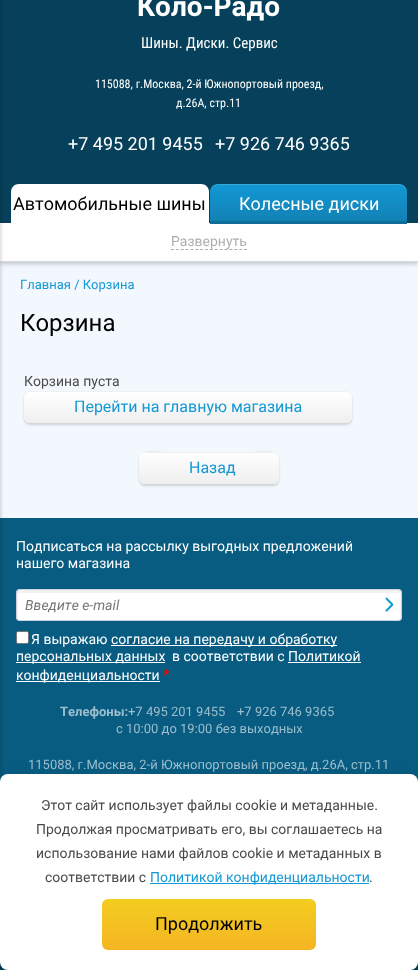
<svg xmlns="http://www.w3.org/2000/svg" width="418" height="970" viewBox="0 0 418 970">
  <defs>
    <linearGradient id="g1" gradientUnits="userSpaceOnUse" x1="309" y1="184" x2="309" y2="224"><stop offset="0" stop-color="#1298d5"/><stop offset="0.98" stop-color="#1380b2"/></linearGradient>
    <linearGradient id="g2" gradientUnits="userSpaceOnUse" x1="188" y1="391" x2="188" y2="423"><stop offset="0" stop-color="#efefef" stop-opacity="0"/><stop offset="1" stop-color="#efefef"/></linearGradient>
    <linearGradient id="g3" gradientUnits="userSpaceOnUse" x1="209" y1="452" x2="209" y2="484"><stop offset="0" stop-color="#efefef" stop-opacity="0"/><stop offset="1" stop-color="#efefef"/></linearGradient>
    <linearGradient id="g4" gradientUnits="userSpaceOnUse" x1="209" y1="899" x2="209" y2="950"><stop offset="0" stop-color="#f3cd20"/><stop offset="1" stop-color="#f5b523"/></linearGradient>
  </defs>
  <rect width="100%" height="100%" fill="#f3f8fe"/>
  <path d="M0 0h418v223H0z" fill="#06405a"/>
  <path d="M0 225h418v39H0z" fill="#00000033" filter="blur(2px)"/>
  <path d="M0 223h418v38H0z" fill="#fff"/>
  <path d="M0 261h418v1H0z" fill="#d8dade"/>
  <path d="M0 518h418v264H0z" fill="#085c81"/>
  <path d="M0 962h418v8H0z" fill="#06405a"/>
  <path d="M-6 2h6v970H-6z" fill="#00000040" filter="blur(2px)"/>
  <path d="M19 184H201C205.5 184 209 187.5 209 192V224H11V192C11 187.5 14.5 184 19 184Z" fill="#fff"/>
  <path d="M218 184H399C403.5 184 407 187.5 407 192V224H210V192C210 187.5 213.5 184 218 184Z" fill="url(#g1)"/>
  <path d="M210 221h197v3H210z" fill="#106d98"/>
  <path d="M218 185H399C403 185 407 189 407 193V192C407 188 403 184 399 184H218C214 184 210 188 210 192V193C210 189 214 185 218 185Z" fill="#ffffff26"/>
  <path d="M171 249.5H247" fill="none" stroke="#aeaeae" stroke-dasharray="3 1.87"/>
  <rect x="24" y="393" width="328" height="32" rx="6" fill="#00000026" filter="blur(1px)"/>
  <rect x="24" y="391" width="328" height="32" rx="6" fill="#fff"/>
  <rect x="24" y="391" width="328" height="32" rx="6" fill="url(#g2)"/>
  <path d="M30 392H346C349 392 352 395 352 398V397C352 394 349 391 346 391H30C27 391 24 394 24 397V398C24 395 27 392 30 392Z" fill="#0000000f"/>
  <rect x="139" y="454" width="140" height="32" rx="6" fill="#00000026" filter="blur(1px)"/>
  <rect x="139" y="452" width="140" height="32" rx="6" fill="#fff"/>
  <rect x="139" y="452" width="140" height="32" rx="6" fill="url(#g3)"/>
  <path d="M145 453H273C276 453 279 456 279 459C279 447 256 452 252 452H166C162 452 139 447 139 459C139 456 142 453 145 453Z" fill="#0000000f"/>
  <rect x="16" y="589" width="386" height="32" rx="4" fill="#fff"/>
  <path d="M20 593H398C402 593 400 602 400 603V619C402 617 401 597 401 593C401 591 400 590 398 590H20C18 590 17 591 17 593C17 597 16 617 18 619V599C18 598 17 593 20 593Z" fill="#f2f2f2"/>
  <rect x="16.5" y="589.5" width="385" height="31" rx="3.5" fill="none" stroke="#05204f33"/>
  <image x="385" y="597" width="9" height="15" href="img/1.png"/>
  <rect x="16.5" y="631.5" width="12" height="12" rx="1.5" fill="#fff" stroke="#767676"/>
  <path d="M111 645h226v1H111z" fill="#fff"/>
  <path d="M16 662h149v1H16z" fill="#fff"/>
  <path d="M288 662h73v1H288z" fill="#fff"/>
  <path d="M16 681h144v1H16z" fill="#fff"/>
  <rect y="775" width="418" height="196" rx="8" fill="#0000000f" filter="blur(5px)"/>
  <rect y="774" width="418" height="196" rx="8" fill="#fff"/>
  <path d="M150 883h219v1H150z" fill="#1298d5"/>
  <rect x="102" y="899" width="214" height="51" rx="6" fill="url(#g4)"/>
  <text x="137" y="16" font-family="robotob" font-size="28" font-weight="bold" fill="#fff">Коло-Радо</text>
  <text x="141" y="48" font-family="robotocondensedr" font-size="15" fill="#fff">Шины. Диски. Сервис</text>
  <g font-family="robotocondensedr" font-size="12" fill="#fff">
    <text x="95" y="88">115088, г.Москва, 2-й Южнопортовый проезд,</text>
    <text x="176" y="107">д.26А, стр.11</text>
  </g>
  <g font-family="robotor" font-size="18" fill="#fff">
    <text x="68" y="150">+7 495 201 9455</text>
    <text x="215" y="150">+7 926 746 9365</text>
  </g>
  <text x="13" y="210" font-family="robotor" font-size="18" fill="#000">Автомобильные шины</text>
  <text x="239" y="210" font-family="robotor" font-size="18" fill="#fff">Колесные диски</text>
  <text x="171" y="246" font-family="robotor" font-size="14" fill="#aeaeae">Развернуть</text>
  <text x="20" y="289" font-family="robotor" font-size="13" fill="#1298d5">Главная / Корзина</text>
  <text x="20" y="331" font-family="robotor" font-size="24" fill="#000">Корзина</text>
  <text x="24" y="386" font-family="robotor" font-size="14" fill="#4a4a4a">Корзина пуста</text>
  <g font-family="robotor" font-size="16" fill="#1298d5">
    <text x="74" y="412">Перейти на главную магазина</text>
    <text x="189" y="473">Назад</text>
  </g>
  <g font-family="robotor" font-size="14" fill="#fff">
    <text x="16" y="551">Подписаться на рассылку выгодных предложений</text>
    <text x="16" y="568">нашего магазина</text>
  </g>
  <text x="25" y="610" font-family="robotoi" font-size="14" font-style="italic" fill="#757575">Введите e-mail</text>
  <g font-family="robotor" font-size="14" fill="#fff">
    <text x="31" y="644">Я выражаю</text>
    <text x="111" y="644">согласие на передачу и обработку</text>
    <text x="16" y="661">персональных данных</text>
    <text x="172" y="661">в соответствии с Политикой</text>
    <text x="16" y="680">конфиденциальности</text>
  </g>
  <text x="163" y="680" font-family="robotor" font-size="15" fill="#f00">*</text>
  <text x="60" y="716" font-family="robotob" font-size="13" font-weight="bold" fill="#9cbecd">Телефоны:</text>
  <g font-family="robotor" font-size="13" fill="#9cbecd">
    <text x="128" y="716">+7 495 201 9455</text>
    <text x="237" y="716">+7 926 746 9365</text>
    <text x="116" y="733">с 10:00 до 19:00 без выходных</text>
    <text x="28" y="769">115088, г.Москва, 2-й Южнопортовый проезд, д.26А, стр.11</text>
  </g>
  <g font-family="robotor" font-size="14" fill="#4a4a4a">
    <text x="41" y="810">Этот сайт использует файлы cookie и метаданные.</text>
    <text x="36" y="834">Продолжая просматривать его, вы соглашаетесь на</text>
    <text x="36" y="858">использование нами файлов cookie и метаданных в</text>
    <text x="45" y="882">соответствии с</text>
  </g>
  <text x="150" y="882" font-family="robotor" font-size="14" fill="#1298d5">Политикой конфиденциальности</text>
  <text x="369" y="882" font-family="robotor" font-size="14" fill="#4a4a4a">.</text>
  <text x="155" y="930" font-family="robotor" font-size="18" fill="#000">Продолжить</text>
</svg>
